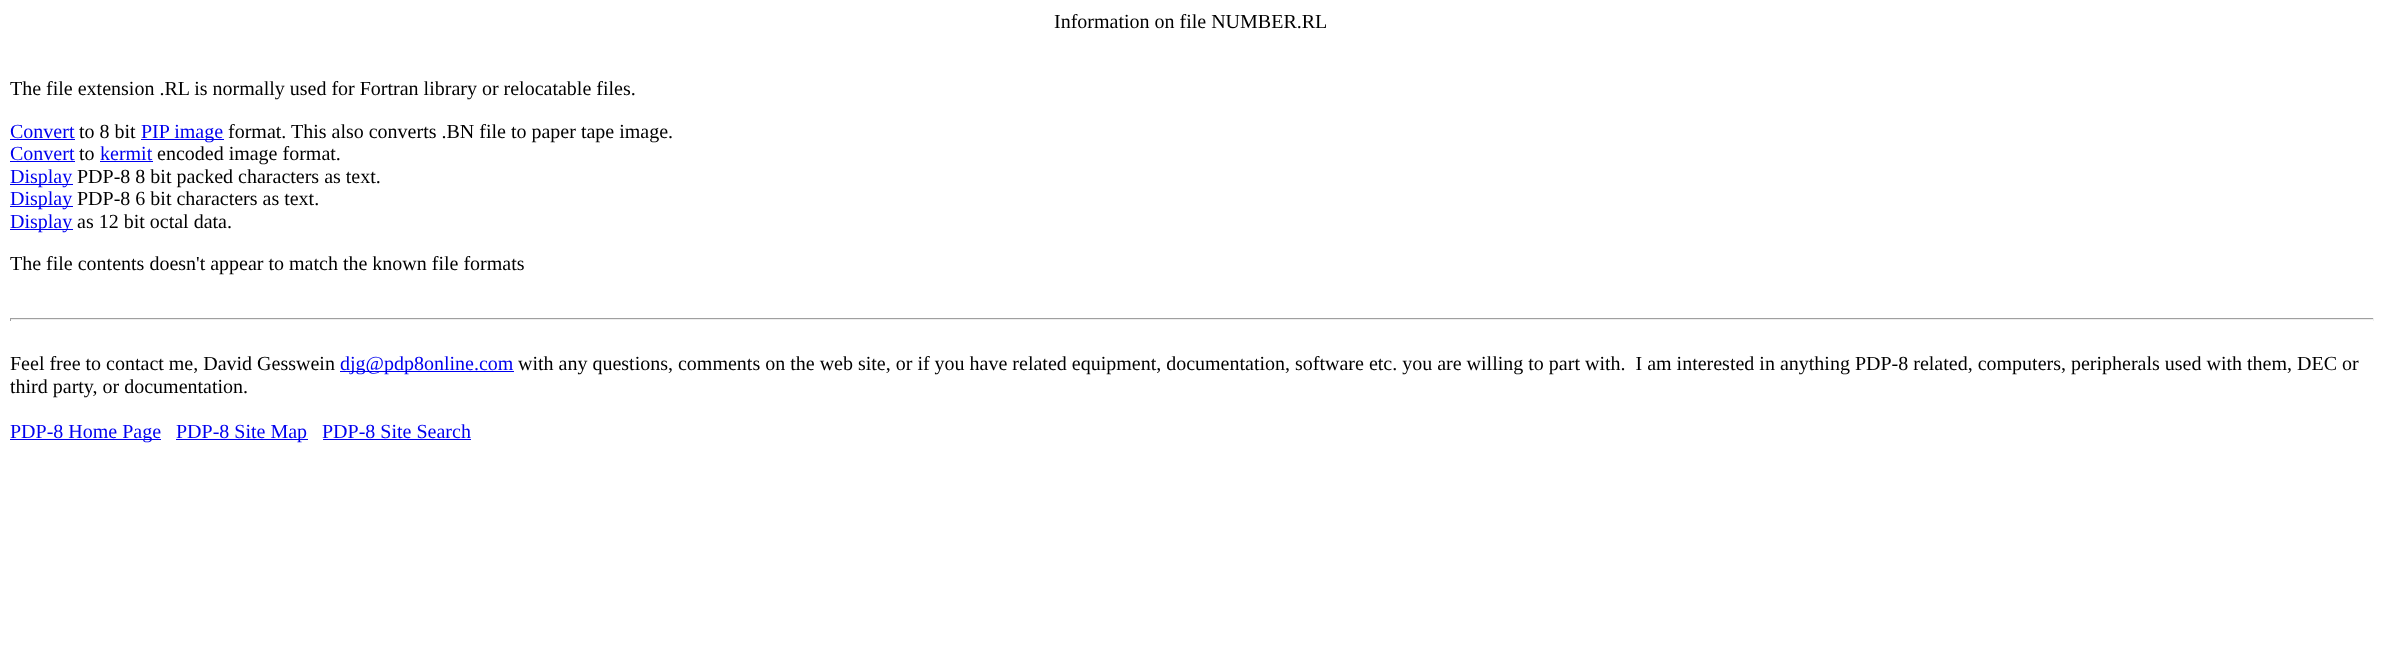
<svg xmlns="http://www.w3.org/2000/svg" width="2381" height="652" viewBox="0 0 2381 652">
  <rect width="100%" height="100%" fill="#fff"/>
  <path d="M10 139h65v1H10z" fill="#00e"/>
  <path d="M141 139h83v1H141z" fill="#00e"/>
  <path d="M10 161h65v1H10z" fill="#00e"/>
  <path d="M100 161h53v1H100z" fill="#00e"/>
  <path d="M10 184h63v1H10z" fill="#00e"/>
  <path d="M10 206h63v1H10z" fill="#00e"/>
  <path d="M10 229h63v1H10z" fill="#00e"/>
  <path d="M10 318h2364v1H10z" fill="#9f9f9f"/>
  <path d="M2373 318h1v3H2373z" fill="#eee"/>
  <path d="M10 319h2364v1H10z" fill="#eee"/>
  <path d="M10 318h1v3H10z" fill="#9f9f9f"/>
  <path d="M340 371h174v1H340z" fill="#00e"/>
  <path d="M10 439h151v1H10z" fill="#00e"/>
  <path d="M176 439h132v1H176z" fill="#00e"/>
  <path d="M323 439h148v1H323z" fill="#00e"/>
  <g font-family="Liberation Serif" font-size="20" fill="#000">
    <text x="1054" y="28">Information on file NUMBER.RL</text>
    <text x="10" y="95">The file extension .RL is normally used for Fortran library or relocatable files.</text>
  </g>
  <text x="10" y="138" font-family="Liberation Serif" font-size="20" fill="#00e">Convert</text>
  <text x="79" y="138" font-family="Liberation Serif" font-size="20" fill="#000">to 8 bit</text>
  <text x="141" y="138" font-family="Liberation Serif" font-size="20" fill="#00e">PIP image</text>
  <text x="228" y="138" font-family="Liberation Serif" font-size="20" fill="#000">format. This also converts .BN file to paper tape image.</text>
  <text x="10" y="160" font-family="Liberation Serif" font-size="20" fill="#00e">Convert</text>
  <text x="79" y="160" font-family="Liberation Serif" font-size="20" fill="#000">to</text>
  <text x="100" y="160" font-family="Liberation Serif" font-size="20" fill="#00e">kermit</text>
  <text x="157" y="160" font-family="Liberation Serif" font-size="20" fill="#000">encoded image format.</text>
  <text x="10" y="183" font-family="Liberation Serif" font-size="20" fill="#00e">Display</text>
  <text x="77" y="183" font-family="Liberation Serif" font-size="20" fill="#000">PDP-8 8 bit packed characters as text.</text>
  <text x="10" y="205" font-family="Liberation Serif" font-size="20" fill="#00e">Display</text>
  <text x="77" y="205" font-family="Liberation Serif" font-size="20" fill="#000">PDP-8 6 bit characters as text.</text>
  <text x="10" y="228" font-family="Liberation Serif" font-size="20" fill="#00e">Display</text>
  <g font-family="Liberation Serif" font-size="20" fill="#000">
    <text x="77" y="228">as 12 bit octal data.</text>
    <text x="10" y="270">The file contents doesn't appear to match the known file formats</text>
    <text x="10" y="370">Feel free to contact me, David Gesswein</text>
  </g>
  <text x="340" y="370" font-family="Liberation Serif" font-size="20" fill="#00e">djg@pdp8online.com</text>
  <g font-family="Liberation Serif" font-size="20" fill="#000">
    <text x="518" y="370" xml:space="preserve">with any questions, comments on the web site, or if you have related equipment, documentation, software etc. you are willing to part with.  I am interested in anything PDP-8 related, computers, peripherals used with them, DEC or</text>
    <text x="10" y="393">third party, or documentation.</text>
  </g>
  <g font-family="Liberation Serif" font-size="20" fill="#00e">
    <text x="10" y="438">PDP-8 Home Page</text>
    <text x="176" y="438">PDP-8 Site Map</text>
    <text x="322" y="438">PDP-8 Site Search</text>
  </g>
</svg>
